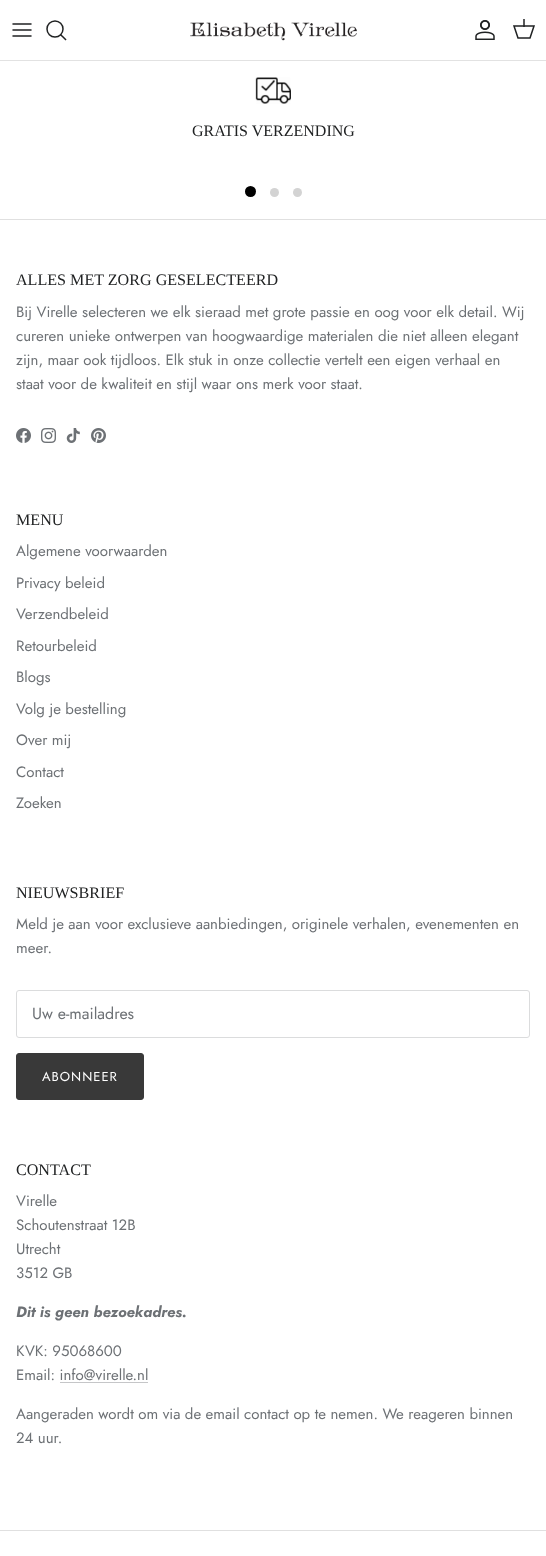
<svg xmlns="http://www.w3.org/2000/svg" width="546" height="1556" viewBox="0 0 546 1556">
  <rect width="100%" height="100%" fill="#fff"/>
  <path d="M0 60h546v1H0z" fill="#e2e2e2"/>
  <path d="M13 30H31M13 24H31M13 36H31" fill="none" stroke="#202223" stroke-width="1.5" stroke-linecap="round" stroke-linejoin="round"/>
  <circle cx="55" cy="29" r="8" fill="none" stroke="#202223" stroke-width="1.5"/>
  <path d="M61 35L65.5 39.5" fill="none" stroke="#202223" stroke-width="1.5" stroke-linecap="square"/>
  <image x="190" y="22" width="167" height="19" href="img/1.png"/>
  <image x="475" y="20" width="20" height="20" href="img/2.png"/>
  <path d="M514 26H534L530 38H518Z" fill="none" stroke="#202223" stroke-width="1.5"/>
  <path d="M523 19h2v8H523z" fill="#202223bf"/>
  <image x="255" y="77" width="36" height="27" href="img/3.png"/>
  <circle cx="250.5" cy="191.5" r="5.5" fill="#000"/>
  <circle cx="274.5" cy="192.5" r="4.5" fill="#d3d3d3"/>
  <circle cx="297.5" cy="192.5" r="4.5" fill="#d3d3d3"/>
  <path d="M0 219h546v1H0z" fill="#e0e0e0"/>
  <image x="16" y="428" width="15" height="15" href="img/4.png"/>
  <image x="41" y="428" width="15" height="15" href="img/5.png"/>
  <image x="66" y="428" width="14" height="15" href="img/6.png"/>
  <image x="91" y="428" width="15" height="15" href="img/7.png"/>
  <rect x="16.5" y="990.5" width="513" height="47" rx="2.5" fill="none" stroke="#dbdcdd"/>
  <rect x="16.5" y="1053.5" width="127" height="46" rx="2.5" fill="#393939" stroke="#393939"/>
  <path d="M60 1382h88v1H60z" fill="#c5c6c8"/>
  <path d="M0 1530h546v1H0z" fill="#e0e0e0"/>
  <text x="192" y="136" font-family="Liberation Serif" font-size="16" fill="#202223">GRATIS VERZENDING</text>
  <text x="16" y="285" font-family="Liberation Serif" font-size="16.1" fill="#202223">ALLES MET ZORG GESELECTEERD</text>
  <g font-family="Jost" font-size="15" fill="#6d7175">
    <text x="16" y="317">Bij Virelle selecteren we elk sieraad met grote passie en oog voor elk detail. Wij</text>
    <text x="16" y="341">cureren unieke ontwerpen van hoogwaardige materialen die niet alleen elegant</text>
    <text x="16" y="365">zijn, maar ook tijdloos. Elk stuk in onze collectie vertelt een eigen verhaal en</text>
    <text x="16" y="389">staat voor de kwaliteit en stijl waar ons merk voor staat.</text>
  </g>
  <text x="16" y="525" font-family="Liberation Serif" font-size="16.1" fill="#202223">MENU</text>
  <g font-family="Jost" font-size="15" fill="#6d7175">
    <text x="16" y="556">Algemene voorwaarden</text>
    <text x="16" y="588">Privacy beleid</text>
    <text x="16" y="619">Verzendbeleid</text>
    <text x="16" y="651">Retourbeleid</text>
    <text x="16" y="682">Blogs</text>
    <text x="16" y="714">Volg je bestelling</text>
    <text x="16" y="745">Over mij</text>
    <text x="16" y="777">Contact</text>
    <text x="16" y="808">Zoeken</text>
  </g>
  <text x="16" y="898" font-family="Liberation Serif" font-size="16.1" fill="#202223">NIEUWSBRIEF</text>
  <g font-family="Jost" font-size="15" fill="#6d7175">
    <text x="16" y="929">Meld je aan voor exclusieve aanbiedingen, originele verhalen, evenementen en</text>
    <text x="16" y="953">meer.</text>
  </g>
  <text x="32" y="1019" font-family="Jost" font-size="16" fill="#6d7175">Uw e-mailadres</text>
  <text x="42" y="1081" font-family="Jost" font-size="13" letter-spacing="1" fill="#fff">ABONNEER</text>
  <text x="16" y="1175" font-family="Liberation Serif" font-size="16.1" fill="#202223">CONTACT</text>
  <g font-family="Jost" font-size="15" fill="#6d7175">
    <text x="16" y="1206">Virelle</text>
    <text x="16" y="1230">Schoutenstraat 12B</text>
    <text x="16" y="1254">Utrecht</text>
    <text x="16" y="1278">3512 GB</text>
  </g>
  <text x="16" y="1317" font-family="Jost" font-size="15" font-weight="bold" font-style="italic" fill="#6d7175">Dit is geen bezoekadres.</text>
  <g font-family="Jost" font-size="15" fill="#6d7175">
    <text x="16" y="1356">KVK: 95068600</text>
    <text x="16" y="1380">Email: info@virelle.nl</text>
    <text x="16" y="1419">Aangeraden wordt om via de email contact op te nemen. We reageren binnen</text>
    <text x="16" y="1443">24 uur.</text>
  </g>
</svg>
